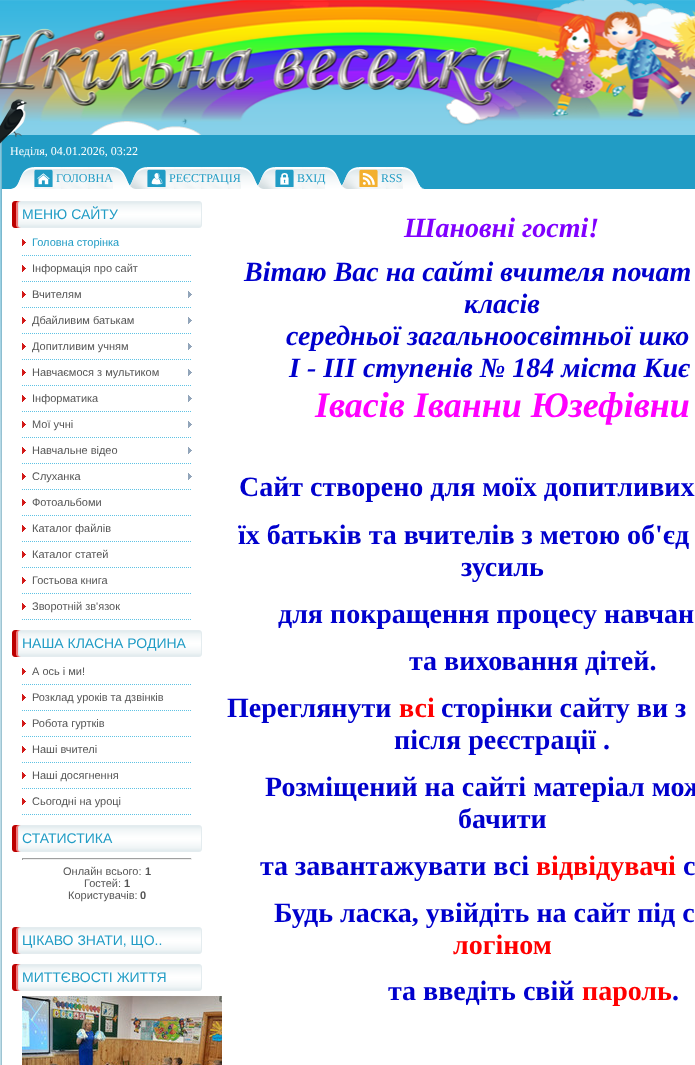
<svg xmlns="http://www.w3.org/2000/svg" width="695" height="1065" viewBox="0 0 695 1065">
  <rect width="100%" height="100%" fill="#cbe7f1"/>
  <image x="0" y="0" width="695" height="473" href="img/1.png"/>
  <image x="0" y="0" width="695" height="122" href="img/2.png"/>
  <image x="0" y="135" width="695" height="32" href="img/3.png"/>
  <image x="0" y="99" width="27" height="45" href="img/4.png"/>
  <image x="0" y="167" width="695" height="23" href="img/5.png"/>
  <image x="11" y="167" width="23" height="22" href="img/6.png"/>
  <image x="34" y="167" width="79" height="22" href="img/7.png"/>
  <image x="34" y="169" width="19" height="18" href="img/8.png"/>
  <image x="113" y="167" width="17" height="22" href="img/9.png"/>
  <image x="130" y="167" width="17" height="22" href="img/10.png"/>
  <image x="147" y="167" width="94" height="22" href="img/11.png"/>
  <image x="147" y="169" width="19" height="18" href="img/12.png"/>
  <image x="241" y="167" width="17" height="22" href="img/9.png"/>
  <image x="258" y="167" width="17" height="22" href="img/10.png"/>
  <image x="275" y="167" width="50" height="22" href="img/13.png"/>
  <image x="275" y="169" width="19" height="18" href="img/14.png"/>
  <image x="325" y="167" width="17" height="22" href="img/9.png"/>
  <image x="342" y="167" width="17" height="22" href="img/10.png"/>
  <image x="359" y="167" width="44" height="22" href="img/15.png"/>
  <image x="359" y="169" width="19" height="18" href="img/16.png"/>
  <image x="403" y="167" width="17" height="22" href="img/9.png"/>
  <image x="420" y="186" width="5" height="3" href="img/17.png"/>
  <image x="0" y="190" width="695" height="875" href="img/18.png"/>
  <image x="12" y="201" width="190" height="27" href="img/19.png"/>
  <path d="M22 255.5H192" fill="none" stroke="#5ec2e4" stroke-dasharray="1 1"/>
  <image x="22" y="239" width="4" height="7" href="img/20.png"/>
  <path d="M22 281.5H192" fill="none" stroke="#5ec2e4" stroke-dasharray="1 1"/>
  <image x="22" y="265" width="4" height="7" href="img/20.png"/>
  <path d="M22 307.5H192" fill="none" stroke="#5ec2e4" stroke-dasharray="1 1"/>
  <image x="22" y="291" width="4" height="7" href="img/20.png"/>
  <image x="188" y="291" width="4" height="7" href="img/21.png"/>
  <path d="M22 333.5H192" fill="none" stroke="#5ec2e4" stroke-dasharray="1 1"/>
  <image x="22" y="317" width="4" height="7" href="img/20.png"/>
  <image x="188" y="317" width="4" height="7" href="img/21.png"/>
  <path d="M22 359.5H192" fill="none" stroke="#5ec2e4" stroke-dasharray="1 1"/>
  <image x="22" y="343" width="4" height="7" href="img/20.png"/>
  <image x="188" y="343" width="4" height="7" href="img/21.png"/>
  <path d="M22 385.5H192" fill="none" stroke="#5ec2e4" stroke-dasharray="1 1"/>
  <image x="22" y="369" width="4" height="7" href="img/20.png"/>
  <image x="188" y="369" width="4" height="7" href="img/21.png"/>
  <path d="M22 411.5H192" fill="none" stroke="#5ec2e4" stroke-dasharray="1 1"/>
  <image x="22" y="395" width="4" height="7" href="img/20.png"/>
  <image x="188" y="395" width="4" height="7" href="img/21.png"/>
  <path d="M22 437.5H192" fill="none" stroke="#5ec2e4" stroke-dasharray="1 1"/>
  <image x="22" y="421" width="4" height="7" href="img/20.png"/>
  <image x="188" y="421" width="4" height="7" href="img/21.png"/>
  <path d="M22 463.5H192" fill="none" stroke="#5ec2e4" stroke-dasharray="1 1"/>
  <image x="22" y="447" width="4" height="7" href="img/20.png"/>
  <image x="188" y="447" width="4" height="7" href="img/21.png"/>
  <path d="M22 489.5H192" fill="none" stroke="#5ec2e4" stroke-dasharray="1 1"/>
  <image x="22" y="473" width="4" height="7" href="img/20.png"/>
  <image x="188" y="473" width="4" height="7" href="img/21.png"/>
  <path d="M22 515.5H192" fill="none" stroke="#5ec2e4" stroke-dasharray="1 1"/>
  <image x="22" y="499" width="4" height="7" href="img/20.png"/>
  <path d="M22 541.5H192" fill="none" stroke="#5ec2e4" stroke-dasharray="1 1"/>
  <image x="22" y="525" width="4" height="7" href="img/20.png"/>
  <path d="M22 567.5H192" fill="none" stroke="#5ec2e4" stroke-dasharray="1 1"/>
  <image x="22" y="551" width="4" height="7" href="img/20.png"/>
  <path d="M22 593.5H192" fill="none" stroke="#5ec2e4" stroke-dasharray="1 1"/>
  <image x="22" y="577" width="4" height="7" href="img/20.png"/>
  <path d="M22 619.5H192" fill="none" stroke="#5ec2e4" stroke-dasharray="1 1"/>
  <image x="22" y="603" width="4" height="7" href="img/20.png"/>
  <image x="12" y="630" width="190" height="27" href="img/19.png"/>
  <path d="M22 684.5H192" fill="none" stroke="#5ec2e4" stroke-dasharray="1 1"/>
  <image x="22" y="668" width="4" height="7" href="img/20.png"/>
  <path d="M22 710.5H192" fill="none" stroke="#5ec2e4" stroke-dasharray="1 1"/>
  <image x="22" y="694" width="4" height="7" href="img/20.png"/>
  <path d="M22 736.5H192" fill="none" stroke="#5ec2e4" stroke-dasharray="1 1"/>
  <image x="22" y="720" width="4" height="7" href="img/20.png"/>
  <path d="M22 762.5H192" fill="none" stroke="#5ec2e4" stroke-dasharray="1 1"/>
  <image x="22" y="746" width="4" height="7" href="img/20.png"/>
  <path d="M22 788.5H192" fill="none" stroke="#5ec2e4" stroke-dasharray="1 1"/>
  <image x="22" y="772" width="4" height="7" href="img/20.png"/>
  <path d="M22 814.5H192" fill="none" stroke="#5ec2e4" stroke-dasharray="1 1"/>
  <image x="22" y="798" width="4" height="7" href="img/20.png"/>
  <image x="12" y="825" width="190" height="27" href="img/19.png"/>
  <path d="M22 858h170v1H22z" fill="#9f9f9f"/>
  <path d="M191 858h1v2H191z" fill="#eee"/>
  <path d="M22 859h170v1H22z" fill="#eee"/>
  <path d="M22 858h1v2H22z" fill="#9f9f9f"/>
  <image x="12" y="927" width="190" height="27" href="img/19.png"/>
  <image x="12" y="964" width="190" height="27" href="img/19.png"/>
  <image x="22" y="996" width="200" height="69" href="img/22.png"/>
  <text x="10" y="155" font-family="Liberation Serif" font-size="12" fill="#fff">Неділя, 04.01.2026, 03:22</text>
  <g font-family="Liberation Serif" font-size="12" fill="#219cc5">
    <text x="56" y="182">ГОЛОВНА</text>
    <text x="169" y="182">РЕЄСТРАЦІЯ</text>
    <text x="297" y="182">ВХІД</text>
    <text x="381" y="182">RSS</text>
  </g>
  <text x="22" y="219" font-family="Liberation Sans" font-size="14" fill="#219cc5">МЕНЮ САЙТУ</text>
  <text x="32" y="246" font-family="Liberation Sans" font-size="11" fill="#219cc5">Головна сторінка</text>
  <g font-family="Liberation Sans" font-size="11" fill="#555">
    <text x="32" y="272">Інформація про сайт</text>
    <text x="32" y="298">Вчителям</text>
    <text x="32" y="324">Дбайливим батькам</text>
    <text x="32" y="350">Допитливим учням</text>
    <text x="32" y="376">Навчаємося з мультиком</text>
    <text x="32" y="402">Інформатика</text>
    <text x="32" y="428">Мої учні</text>
    <text x="32" y="454">Навчальне відео</text>
    <text x="32" y="480">Слуханка</text>
    <text x="32" y="506">Фотоальбоми</text>
    <text x="32" y="532">Каталог файлів</text>
    <text x="32" y="558">Каталог статей</text>
    <text x="32" y="584">Гостьова книга</text>
    <text x="32" y="610">Зворотній зв'язок</text>
  </g>
  <text x="22" y="648" font-family="Liberation Sans" font-size="14" fill="#219cc5">НАША КЛАСНА РОДИНА</text>
  <g font-family="Liberation Sans" font-size="11" fill="#555">
    <text x="32" y="675">А ось і ми!</text>
    <text x="32" y="701">Розклад уроків та дзвінків</text>
    <text x="32" y="727">Робота гуртків</text>
    <text x="32" y="753">Наші вчителі</text>
    <text x="32" y="779">Наші досягнення</text>
    <text x="32" y="805">Сьогодні на уроці</text>
  </g>
  <text x="22" y="843" font-family="Liberation Sans" font-size="14" fill="#219cc5">СТАТИСТИКА</text>
  <text x="63" y="875" font-family="Liberation Sans" font-size="11" fill="#555">Онлайн всього:</text>
  <text x="145" y="875" font-family="Liberation Sans" font-size="11" font-weight="bold" fill="#555">1</text>
  <text x="84" y="887" font-family="Liberation Sans" font-size="11" fill="#555">Гостей:</text>
  <text x="124" y="887" font-family="Liberation Sans" font-size="11" font-weight="bold" fill="#555">1</text>
  <text x="68" y="899" font-family="Liberation Sans" font-size="11" fill="#555">Користувачів:</text>
  <text x="140" y="899" font-family="Liberation Sans" font-size="11" font-weight="bold" fill="#555">0</text>
  <g font-family="Liberation Sans" font-size="14" fill="#219cc5">
    <text x="22" y="945">ЦІКАВО ЗНАТИ, ЩО..</text>
    <text x="22" y="982">МИТТЄВОСТІ ЖИТТЯ</text>
  </g>
  <text x="404" y="237" font-family="Liberation Serif" font-size="28" font-weight="bold" font-style="italic" fill="#8000ff">Шановні гості!</text>
  <g font-family="Liberation Serif" font-size="28" font-weight="bold" font-style="italic" fill="#0000cd">
    <text x="244" y="281">Вітаю Вас на сайті вчителя почат</text>
    <text x="464" y="313">класів</text>
    <text x="286" y="345">середньої загальноосвітньої шко</text>
    <text x="289" y="377">I - III ступенів № 184 міста Киє</text>
  </g>
  <text x="315" y="417" font-family="Liberation Serif" font-size="36" font-weight="bold" font-style="italic" fill="#f0f">Івасів Іванни Юзефівни</text>
  <g font-family="Liberation Serif" font-size="28" font-weight="bold" fill="#0000cd">
    <text x="239" y="496">Сайт створено для моїх допитливих</text>
    <text x="238" y="544">їх батьків та вчителів з метою об'єд</text>
    <text x="461" y="576">зусиль</text>
    <text x="278" y="623">для покращення процесу навчан</text>
    <text x="409" y="670">та виховання дітей.</text>
    <text x="227" y="717">Переглянути</text>
  </g>
  <text x="399" y="717" font-family="Liberation Serif" font-size="28" font-weight="bold" fill="#f00">всі</text>
  <g font-family="Liberation Serif" font-size="28" font-weight="bold" fill="#0000cd">
    <text x="441" y="717">сторінки сайту ви з</text>
    <text x="394" y="749">після реєстрації .</text>
    <text x="265" y="796">Розміщений на сайті матеріал мож</text>
    <text x="458" y="828">бачити</text>
    <text x="260" y="875">та завантажувати всі</text>
  </g>
  <text x="536" y="875" font-family="Liberation Serif" font-size="28" font-weight="bold" fill="#f00">відвідувачі</text>
  <g font-family="Liberation Serif" font-size="28" font-weight="bold" fill="#0000cd">
    <text x="683" y="875">с</text>
    <text x="274" y="922">Будь ласка, увійдіть на сайт під с</text>
  </g>
  <text x="453" y="954" font-family="Liberation Serif" font-size="28" font-weight="bold" fill="#f00">логіном</text>
  <text x="388" y="1000" font-family="Liberation Serif" font-size="28" font-weight="bold" fill="#0000cd">та введіть свій</text>
  <text x="582" y="1000" font-family="Liberation Serif" font-size="28" font-weight="bold" fill="#f00">пароль</text>
  <text x="672" y="1000" font-family="Liberation Serif" font-size="28" font-weight="bold" fill="#0000cd">.</text>
</svg>
